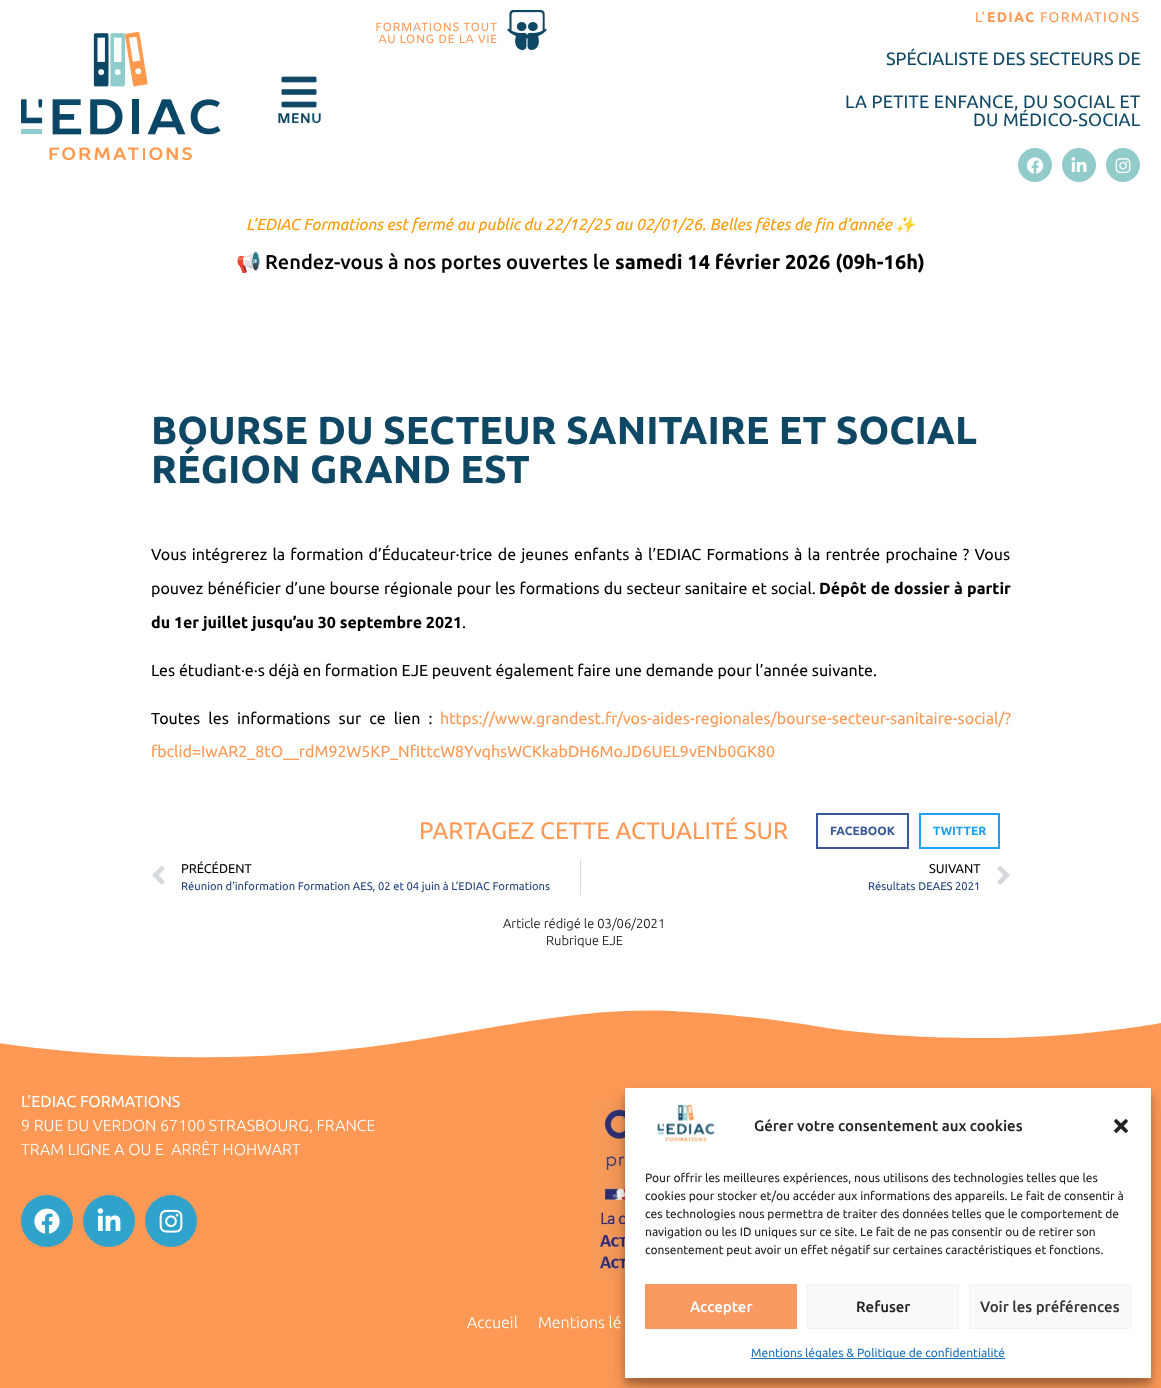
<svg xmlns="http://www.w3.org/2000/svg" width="1161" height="1388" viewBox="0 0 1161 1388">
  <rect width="100%" height="100%" fill="#fff"/>
  <image x="21" y="32" width="200" height="128" href="img/1.png"/>
  <image x="281" y="76" width="36" height="32" href="img/2.png"/>
  <image x="507" y="10" width="40" height="40" href="img/3.png"/>
  <circle cx="1035" cy="165" r="17" fill="#91cccb"/>
  <image x="1026" y="157" width="18" height="17" href="img/4.png"/>
  <circle cx="1079" cy="165" r="17" fill="#91cccb"/>
  <image x="1071" y="157" width="16" height="15" href="img/5.png"/>
  <circle cx="1123" cy="165" r="17" fill="#91cccb"/>
  <image x="1115" y="158" width="16" height="16" href="img/6.png"/>
  <path d="M817 814h91v34H817z" fill="none" stroke="#3b5998" stroke-width="2"/>
  <path d="M920 814h79v34H920z" fill="none" stroke="#1da1f2" stroke-width="2"/>
  <image x="152" y="866" width="13" height="19" href="img/7.png"/>
  <path d="M580 859h1v36H580z" fill="#d5d8dc"/>
  <image x="997" y="866" width="13" height="19" href="img/8.png"/>
  <path d="M0 1010h1161v378H0z" fill="#fd9955"/>
  <path d="M671 1011C580 1007 493 1029 404 1042C318 1055 231 1060 144 1056C96 1054 47 1050-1 1043V1008H1161V1023C1161 1023 1077 1039 977 1038C931 1038 869 1035 821 1027C797 1023 761 1018 729 1015C697 1012 683 1012 671 1011Z" fill="#fff"/>
  <circle cx="47" cy="1221" r="26" fill="#30a3cc"/>
  <image x="34" y="1208" width="26" height="26" href="img/9.png"/>
  <circle cx="109" cy="1221" r="26" fill="#30a3cc"/>
  <image x="97" y="1208" width="24" height="23" href="img/10.png"/>
  <circle cx="171" cy="1221" r="26" fill="#30a3cc"/>
  <image x="159" y="1209" width="24" height="24" href="img/11.png"/>
  <image x="591" y="1099" width="34" height="180" href="img/12.png"/>
  <path d="M625 1094h526v290H625z" fill="#0000003b" filter="blur(3px)"/>
  <path d="M625 1098h526v290H625z" fill="#00000030" filter="blur(10px)"/>
  <path d="M625 1088h526v290H625z" fill="#fff"/>
  <image x="657" y="1104" width="58" height="38" href="img/13.png"/>
  <image x="1114" y="1119" width="14" height="14" href="img/14.png"/>
  <path d="M645 1284h152v45H645z" fill="#f99962"/>
  <path d="M807.5 1284.5h151v44H807.5z" fill="#f9f9f9" stroke="#f2f2f2"/>
  <path d="M969.5 1284.5h161v44H969.5z" fill="#f9f9f9" stroke="#f2f2f2"/>
  <path d="M751 1358h254v1H751z" fill="#1e73be"/>
  <text x="277" y="123" font-family="Amiko" font-size="14" font-weight="bold" fill="#0f4865">MENU</text>
  <g font-family="Amiko" font-size="12" fill="#fd9955">
    <text x="375" y="31">FORMATIONS TOUT</text>
    <text x="378" y="43">AU LONG DE LA VIE</text>
  </g>
  <text x="975" y="22" font-family="Ubuntu" font-size="14" letter-spacing="1.25" fill="#fd9955">L’</text>
  <text x="987" y="22" font-family="Ubuntu" font-size="14" font-weight="bold" letter-spacing="1.25" fill="#fd9955">EDIAC</text>
  <text x="1040" y="22" font-family="Ubuntu" font-size="14" letter-spacing="1.25" fill="#fd9955">FORMATIONS</text>
  <text x="886" y="65" font-family="Ubuntu" font-size="18" fill="#0f4865">SPÉCIALISTE DES SECTEURS DE</text>
  <g font-family="Ubuntu" font-size="18" letter-spacing="0.2" fill="#0f4865">
    <text x="845" y="108">LA PETITE ENFANCE, DU SOCIAL ET</text>
    <text x="973" y="126">DU MÉDICO-SOCIAL</text>
  </g>
  <text x="246" y="230" font-family="Ubuntu" font-size="16" font-style="italic" fill="#f90">L’EDIAC Formations est fermé au public du 22/12/25 au 02/01/26. Belles fêtes de fin d’année</text>
  <text x="895" y="230" font-family="Noto Color Emoji" font-size="16" font-style="italic" fill="#f90">✨</text>
  <text x="236" y="269" font-family="Noto Color Emoji" font-size="20" fill="#000">📢</text>
  <text x="265" y="269" font-family="Ubuntu" font-size="20" font-weight="500" fill="#000">Rendez-vous à nos portes ouvertes le</text>
  <text x="615" y="269" font-family="Ubuntu" font-size="20" font-weight="bold" fill="#000">samedi 14 février 2026 (09h-16h)</text>
  <g font-family="Ubuntu" font-size="39" font-weight="bold" fill="#0f4865">
    <text x="151" y="444">BOURSE DU SECTEUR SANITAIRE ET SOCIAL</text>
    <text x="151" y="483">RÉGION GRAND EST</text>
  </g>
  <g font-family="Ubuntu" font-size="16" fill="#000">
    <text x="151" y="560" word-spacing="1.5">Vous intégrerez la formation d’Éducateur·trice de jeunes enfants à l’EDIAC Formations à la rentrée prochaine ? Vous</text>
    <text x="151" y="594" word-spacing="0.4">pouvez bénéficier d’une bourse régionale pour les formations du secteur sanitaire et social.</text>
  </g>
  <g font-family="Ubuntu" font-size="16" font-weight="bold" fill="#000">
    <text x="819" y="594" word-spacing="0.4">Dépôt de dossier à partir</text>
    <text x="151" y="628">du 1er juillet jusqu’au 30 septembre 2021</text>
  </g>
  <g font-family="Ubuntu" font-size="16" fill="#000">
    <text x="462" y="628">.</text>
    <text x="151" y="676">Les étudiant·e·s déjà en formation EJE peuvent également faire une demande pour l’année suivante.</text>
    <text x="151" y="724" word-spacing="4.5">Toutes les informations sur ce lien :</text>
  </g>
  <g font-family="Ubuntu" font-size="16" fill="#fd9955">
    <text x="440" y="724">https://www.grandest.fr/vos-aides-regionales/bourse-secteur-sanitaire-social/?</text>
    <text x="151" y="757">fbclid=IwAR2_8tO__rdM92W5KP_NfIttcW8YvqhsWCKkabDH6MoJD6UEL9vENb0GK80</text>
  </g>
  <text x="419" y="839" font-family="Ubuntu" font-size="24" fill="#fd9955">PARTAGEZ CETTE ACTUALITÉ SUR</text>
  <text x="830" y="835" font-family="Ubuntu" font-size="12" font-weight="bold" fill="#3b5998">FACEBOOK</text>
  <text x="933" y="835" font-family="Ubuntu" font-size="12" font-weight="bold" fill="#1da1f2">TWITTER</text>
  <text x="181" y="873" font-family="Ubuntu" font-size="12.75" fill="#000">PRÉCÉDENT</text>
  <text x="181" y="890" font-family="Ubuntu" font-size="11.2" fill="#1f437d">Réunion d’information Formation AES, 02 et 04 juin à L’EDIAC Formations</text>
  <text x="929" y="873" font-family="Ubuntu" font-size="12.75" fill="#000">SUIVANT</text>
  <text x="868" y="890" font-family="Ubuntu" font-size="11.2" fill="#1f437d">Résultats DEAES 2021</text>
  <g font-family="Ubuntu" font-size="13" font-weight="300" fill="#000">
    <text x="503" y="928">Article rédigé le 03/06/2021</text>
    <text x="546" y="945">Rubrique EJE</text>
  </g>
  <text x="21" y="1107" font-family="Ubuntu" font-size="16" fill="#fff">L’EDIAC FORMATIONS</text>
  <g font-family="Ubuntu" font-size="16" font-weight="300" fill="#fff">
    <text x="21" y="1131">9 RUE DU VERDON 67100 STRASBOURG, FRANCE</text>
    <text x="21" y="1155" xml:space="preserve">TRAM LIGNE A OU E  ARRÊT HOHWART</text>
    <text x="467" y="1328">Accueil</text>
    <text x="538" y="1328">Mentions lé</text>
  </g>
  <text x="754" y="1131" font-family="Ubuntu" font-size="15" font-weight="500" fill="#222">Gérer votre consentement aux cookies</text>
  <g font-family="Ubuntu" font-size="12" fill="#222">
    <text x="645" y="1182">Pour offrir les meilleures expériences, nous utilisons des technologies telles que les</text>
    <text x="645" y="1200">cookies pour stocker et/ou accéder aux informations des appareils. Le fait de consentir à</text>
    <text x="645" y="1218">ces technologies nous permettra de traiter des données telles que le comportement de</text>
    <text x="645" y="1236">navigation ou les ID uniques sur ce site. Le fait de ne pas consentir ou de retirer son</text>
    <text x="645" y="1254">consentement peut avoir un effet négatif sur certaines caractéristiques et fonctions.</text>
  </g>
  <text x="690" y="1312" font-family="Ubuntu" font-size="15" font-weight="500" fill="#fff">Accepter</text>
  <text x="856" y="1312" font-family="Ubuntu" font-size="15" font-weight="500" fill="#222">Refuser</text>
  <text x="980" y="1312" font-family="Ubuntu" font-size="15" font-weight="500" fill="#333">Voir les préférences</text>
  <text x="751" y="1357" font-family="Ubuntu" font-size="12" fill="#1e73be">Mentions légales &amp; Politique de confidentialité</text>
</svg>
